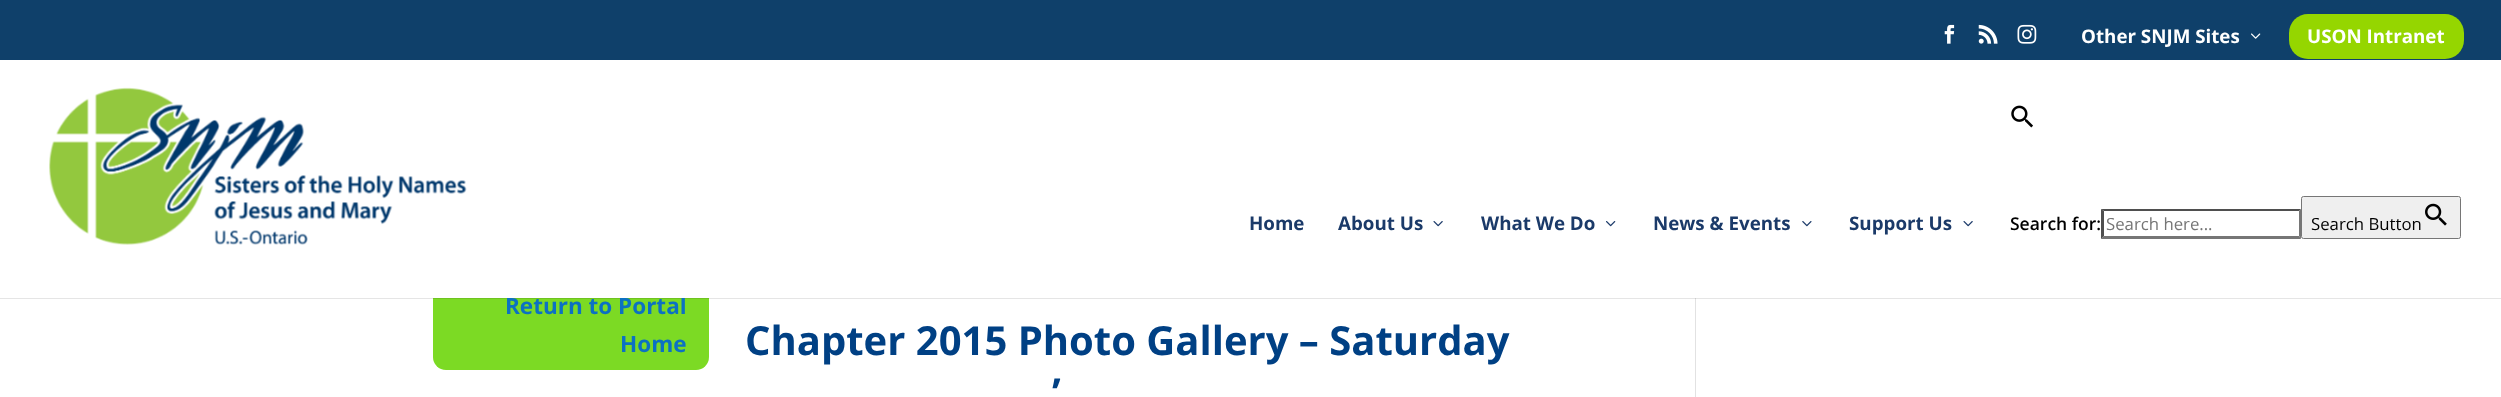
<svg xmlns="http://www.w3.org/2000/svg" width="2501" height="397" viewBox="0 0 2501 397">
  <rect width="100%" height="100%" fill="#fff"/>
  <path d="M0 0h2501v60H0z" fill="#0f406a"/>
  <image x="1944" y="24" width="11" height="20" href="img/1.png"/>
  <image x="1978" y="24" width="20" height="20" href="img/2.png"/>
  <image x="2017" y="24" width="20" height="20" href="img/3.png"/>
  <image x="2251" y="33" width="10" height="6" href="img/4.png"/>
  <rect x="2289" y="14" width="175" height="45" rx="19" fill="#95d600"/>
  <rect x="433" y="280" width="276" height="90" rx="13" fill="#7cda24"/>
  <path d="M1695 298h1v99H1695z" fill="#e2e2e2"/>
  <path d="M0 298h2501v1H0z" fill="#0000001a"/>
  <image x="49" y="87" width="418" height="158" href="img/5.png"/>
  <image x="1433" y="221" width="10" height="6" href="img/6.png"/>
  <image x="1606" y="221" width="10" height="6" href="img/7.png"/>
  <image x="1802" y="221" width="10" height="6" href="img/8.png"/>
  <image x="1963" y="221" width="10" height="6" href="img/6.png"/>
  <image x="2011" y="105" width="22" height="23" href="img/9.png"/>
  <path d="M2101 209H2301L2299 211H2104Z" fill="#4f4f4f"/>
  <path d="M2301 209V239L2299 236V211Z" fill="#767676"/>
  <path d="M2301 239H2101L2104 236H2299Z" fill="#767676"/>
  <path d="M2101 239V209L2104 211V236Z" fill="#4f4f4f"/>
  <rect x="2301.5" y="196.5" width="159" height="42" rx="2" fill="#efefef" stroke="#767676"/>
  <image x="2425" y="203" width="22" height="23" href="img/10.png"/>
  <g font-family="Open Sans" font-size="18.75" font-weight="bold" fill="#fff">
    <text x="2081" y="43">Other SNJM Sites</text>
    <text x="2307" y="43">USON Intranet</text>
  </g>
  <g font-family="Open Sans" font-size="18.75" font-weight="bold" fill="#1b3a69">
    <text x="1249" y="230">Home</text>
    <text x="1338" y="230">About Us</text>
    <text x="1481" y="230">What We Do</text>
    <text x="1653" y="230">News &amp; Events</text>
    <text x="1849" y="230">Support Us</text>
  </g>
  <text x="2010" y="230" font-family="Open Sans" font-size="17.5" font-weight="600" fill="#000">Search for:</text>
  <text x="2106" y="230" font-family="Open Sans" font-size="16.75" fill="#757575">Search here...</text>
  <text x="2311" y="230" font-family="Open Sans" font-size="16.75" fill="#000">Search Button</text>
  <text x="505" y="314" font-family="Open Sans" font-size="22.5" font-weight="bold" fill="#0c71c3">Return to Portal</text>
  <path d="M433 280h276v18H433z" fill="#fff"/>
  <text x="620" y="352" font-family="Open Sans" font-size="22.5" font-weight="bold" fill="#0c71c3">Home</text>
  <g font-family="Open Sans" font-size="40" font-weight="bold" fill="#004084">
    <text x="745" y="355">Chapter 2015 Photo Gallery – Saturday</text>
    <text x="1052" y="407">’</text>
  </g>
</svg>
